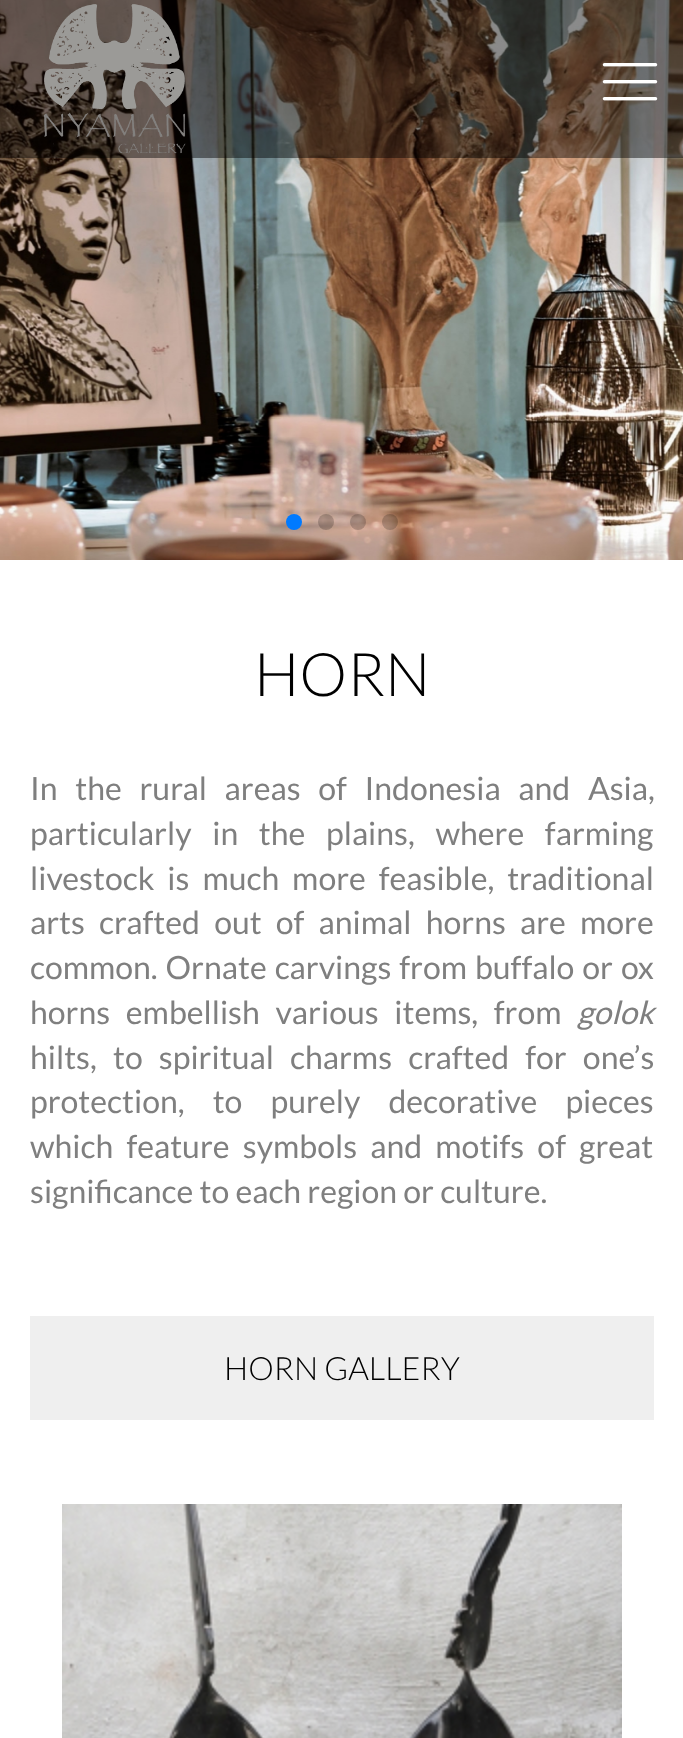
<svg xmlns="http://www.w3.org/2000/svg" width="683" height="1738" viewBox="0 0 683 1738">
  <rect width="100%" height="100%" fill="#fff"/>
  <image x="0" y="0" width="683" height="560" href="img/1.png"/>
  <circle cx="294" cy="522" r="8" fill="#007aff"/>
  <circle cx="326" cy="522" r="8" fill="#00000033"/>
  <circle cx="358" cy="522" r="8" fill="#00000033"/>
  <circle cx="390" cy="522" r="8" fill="#00000033"/>
  <path d="M0 0h683v158H0z" fill="#00000073"/>
  <image x="43" y="4" width="143" height="150" href="img/2.png"/>
  <image x="602" y="63" width="56" height="38" href="img/3.png"/>
  <path d="M30 1316h624v104H30z" fill="#efefef"/>
  <image x="62" y="1504" width="560" height="234" href="img/4.png"/>
  <text x="254" y="696" font-family="Lato" font-size="60" font-weight="300" fill="#000">HORN</text>
  <g font-family="Lato" font-size="32" fill="#7f7f7f">
    <text x="30" y="800" word-spacing="11.5">In the rural areas of Indonesia and Asia,</text>
    <text x="30" y="845" word-spacing="14.5">particularly in the plains, where farming</text>
    <text x="30" y="890" word-spacing="6.75">livestock is much more feasible, traditional</text>
    <text x="30" y="934" word-spacing="8">arts crafted out of animal horns are more</text>
    <text x="30" y="979" word-spacing="1.75">common. Ornate carvings from buffalo or ox</text>
    <text x="30" y="1024" word-spacing="9.5">horns embellish various items, from</text>
  </g>
  <text x="577" y="1024" font-family="Lato" font-size="32" font-style="italic" fill="#7f7f7f">golok</text>
  <g font-family="Lato" font-size="32" fill="#7f7f7f">
    <text x="30" y="1069" word-spacing="10">hilts, to spiritual charms crafted for one’s</text>
    <text x="30" y="1113" word-spacing="22">protection, to purely decorative pieces</text>
    <text x="30" y="1158" word-spacing="7">which feature symbols and motifs of great</text>
    <text x="30" y="1203">significance to each region or culture.</text>
  </g>
  <text x="224" y="1380" font-family="Lato" font-size="32" font-weight="300" fill="#000">HORN GALLERY</text>
</svg>
